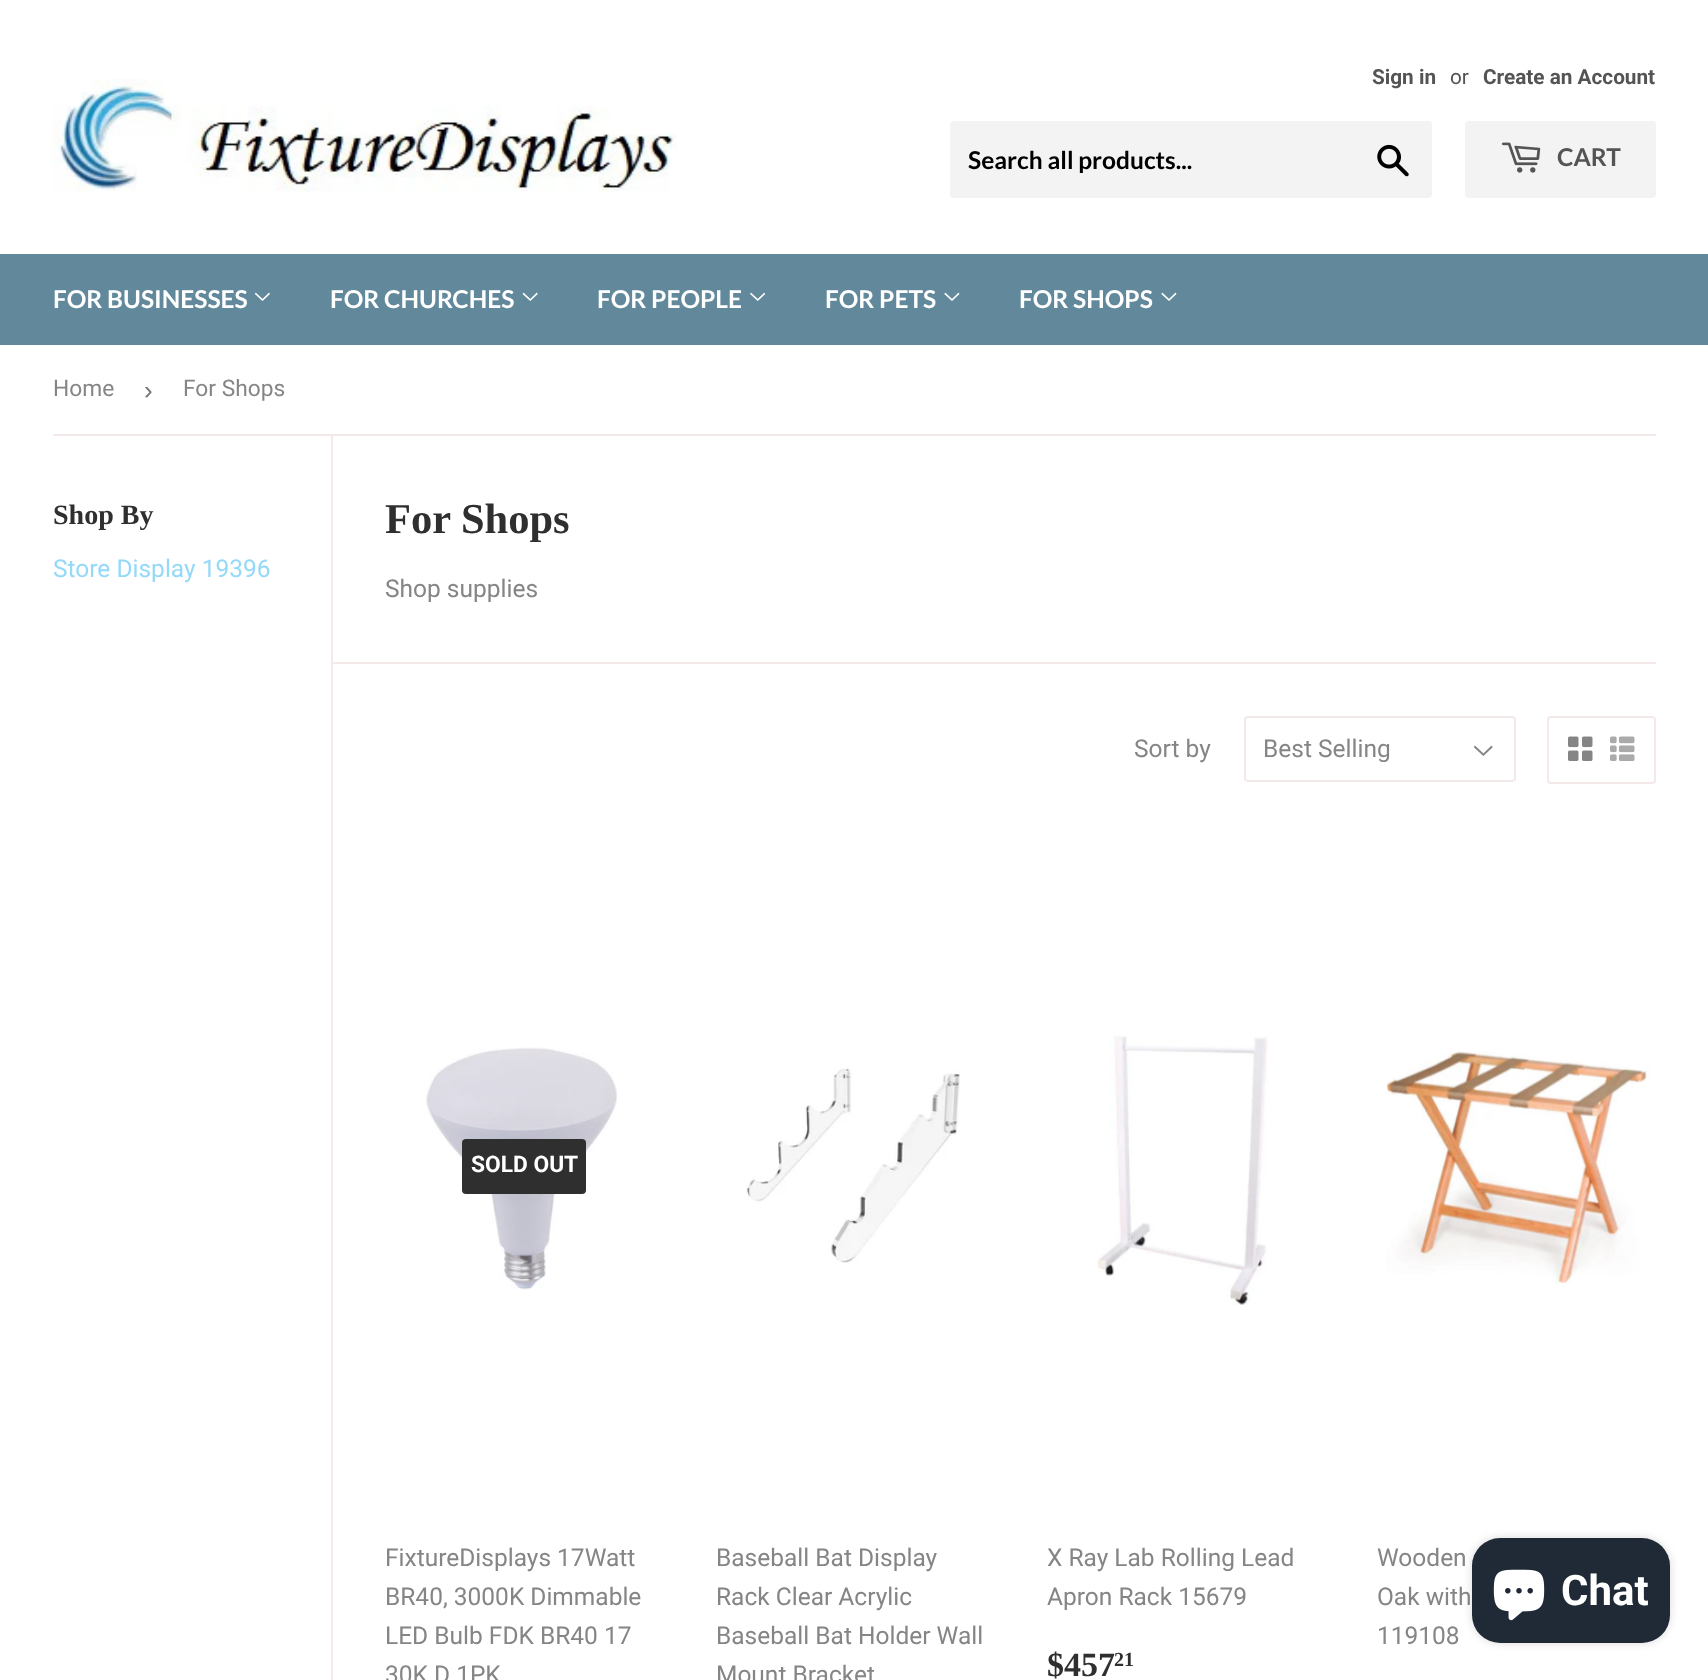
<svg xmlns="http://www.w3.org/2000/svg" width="1708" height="1680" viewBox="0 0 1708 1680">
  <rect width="100%" height="100%" fill="#fff"/>
  <image x="52" y="79" width="625" height="113" href="img/1.png"/>
  <rect x="950" y="121" width="482" height="77" rx="4" fill="#f3f3f3"/>
  <image x="1377" y="144" width="32" height="33" href="img/2.png"/>
  <rect x="1465" y="121" width="191" height="77" rx="4" fill="#f3f3f3"/>
  <image x="1501" y="142" width="40" height="31" href="img/3.png"/>
  <path d="M0 254h1708v91H0z" fill="#62899b"/>
  <image x="255" y="292" width="15" height="9" href="img/4.png"/>
  <image x="522" y="292" width="16" height="9" href="img/5.png"/>
  <image x="750" y="292" width="15" height="9" href="img/6.png"/>
  <image x="944" y="292" width="16" height="9" href="img/7.png"/>
  <image x="1161" y="292" width="16" height="9" href="img/7.png"/>
  <path d="M53 434h1603v2H53z" fill="#f4e9e9"/>
  <path d="M331 436h2v1244H331z" fill="#f4e9e9"/>
  <path d="M333 662h1323v2H333z" fill="#f4e9e9"/>
  <image x="1474" y="745" width="19" height="11" href="img/8.png"/>
  <rect x="1245" y="717" width="270" height="64" rx="3" fill="none" stroke="#f4e9e9" stroke-width="2"/>
  <rect x="1548" y="717" width="107" height="66" rx="3" fill="none" stroke="#f4e9e9" stroke-width="2"/>
  <image x="1568" y="736" width="25" height="25" href="img/9.png"/>
  <image x="1610" y="736" width="25" height="25" href="img/10.png"/>
  <image x="426" y="1047" width="191" height="243" href="img/11.png"/>
  <rect x="462" y="1139" width="124" height="55" rx="4" fill="#2f2f2f"/>
  <image x="746" y="1068" width="215" height="195" href="img/12.png"/>
  <image x="1097" y="1036" width="171" height="269" href="img/13.png"/>
  <image x="1386" y="1051" width="266" height="233" href="img/14.png"/>
  <rect x="1472" y="1538" width="198" height="105" rx="28" fill="#00000026" filter="blur(4.5px)"/>
  <rect x="1472" y="1538" width="198" height="105" rx="28" fill="#202a36"/>
  <image x="1493" y="1569" width="52" height="52" href="img/15.png"/>
  <text x="1372" y="84" font-family="Roboto" font-size="20.75" font-weight="bold" fill="#545454">Sign in</text>
  <text x="1450" y="84" font-family="Roboto" font-size="20.75" fill="#545454">or</text>
  <text x="1483" y="84" font-family="Roboto" font-size="20.75" font-weight="bold" fill="#545454">Create an Account</text>
  <text x="968" y="169" font-family="Lato" font-size="24.5" font-weight="bold" fill="#000">Search all products...</text>
  <text x="1557" y="166" font-family="Lato" font-size="24.5" font-weight="bold" fill="#545454">CART</text>
  <g font-family="Lato" font-size="24.5" font-weight="bold" fill="#fff">
    <text x="53" y="308">FOR BUSINESSES</text>
    <text x="330" y="308">FOR CHURCHES</text>
    <text x="597" y="308">FOR PEOPLE</text>
    <text x="825" y="308">FOR PETS</text>
    <text x="1019" y="308">FOR SHOPS</text>
  </g>
  <text x="53" y="396" font-family="Roboto" font-size="22.75" fill="#858585">Home</text>
  <text x="144" y="399" font-family="Liberation Sans" font-size="26" fill="#767676">›</text>
  <text x="183" y="396" font-family="Roboto" font-size="22.75" fill="#858585">For Shops</text>
  <text x="53" y="524" font-family="Liberation Serif" font-size="28" font-weight="bold" fill="#2f2f2f">Shop By</text>
  <text x="53" y="577" font-family="Roboto" font-size="24.5" fill="#94d9f8">Store Display 19396</text>
  <text x="385" y="533" font-family="Liberation Serif" font-size="42.5" font-weight="bold" fill="#2f2f2f">For Shops</text>
  <g font-family="Roboto" font-size="24.5" fill="#858585">
    <text x="385" y="597">Shop supplies</text>
    <text x="1134" y="757">Sort by</text>
    <text x="1263" y="757">Best Selling</text>
  </g>
  <text x="471" y="1172" font-family="Roboto" font-size="22.75" font-weight="bold" fill="#fff">SOLD OUT</text>
  <g font-family="Roboto" font-size="24.5" fill="#858585">
    <text x="385" y="1566">FixtureDisplays 17Watt</text>
    <text x="385" y="1605">BR40, 3000K Dimmable</text>
    <text x="385" y="1644">LED Bulb FDK BR40 17</text>
    <text x="385" y="1683">30K D 1PK</text>
    <text x="716" y="1566">Baseball Bat Display</text>
    <text x="716" y="1605">Rack Clear Acrylic</text>
    <text x="716" y="1644">Baseball Bat Holder Wall</text>
    <text x="716" y="1683">Mount Bracket</text>
    <text x="1047" y="1566">X Ray Lab Rolling Lead</text>
    <text x="1047" y="1605">Apron Rack 15679</text>
  </g>
  <text x="1047" y="1676" font-family="Liberation Serif" font-size="34" font-weight="bold" fill="#2f2f2f">$457</text>
  <text x="1114" y="1666" font-family="Liberation Serif" font-size="20" font-weight="bold" fill="#2f2f2f">21</text>
  <g font-family="Roboto" font-size="24.5" fill="#858585">
    <text x="1377" y="1566">Wooden</text>
    <text x="1377" y="1605">Oak with</text>
    <text x="1377" y="1644">119108</text>
  </g>
  <text x="1561" y="1605" font-family="Roboto" font-size="42" font-weight="bold" fill="#fff">Chat</text>
</svg>
